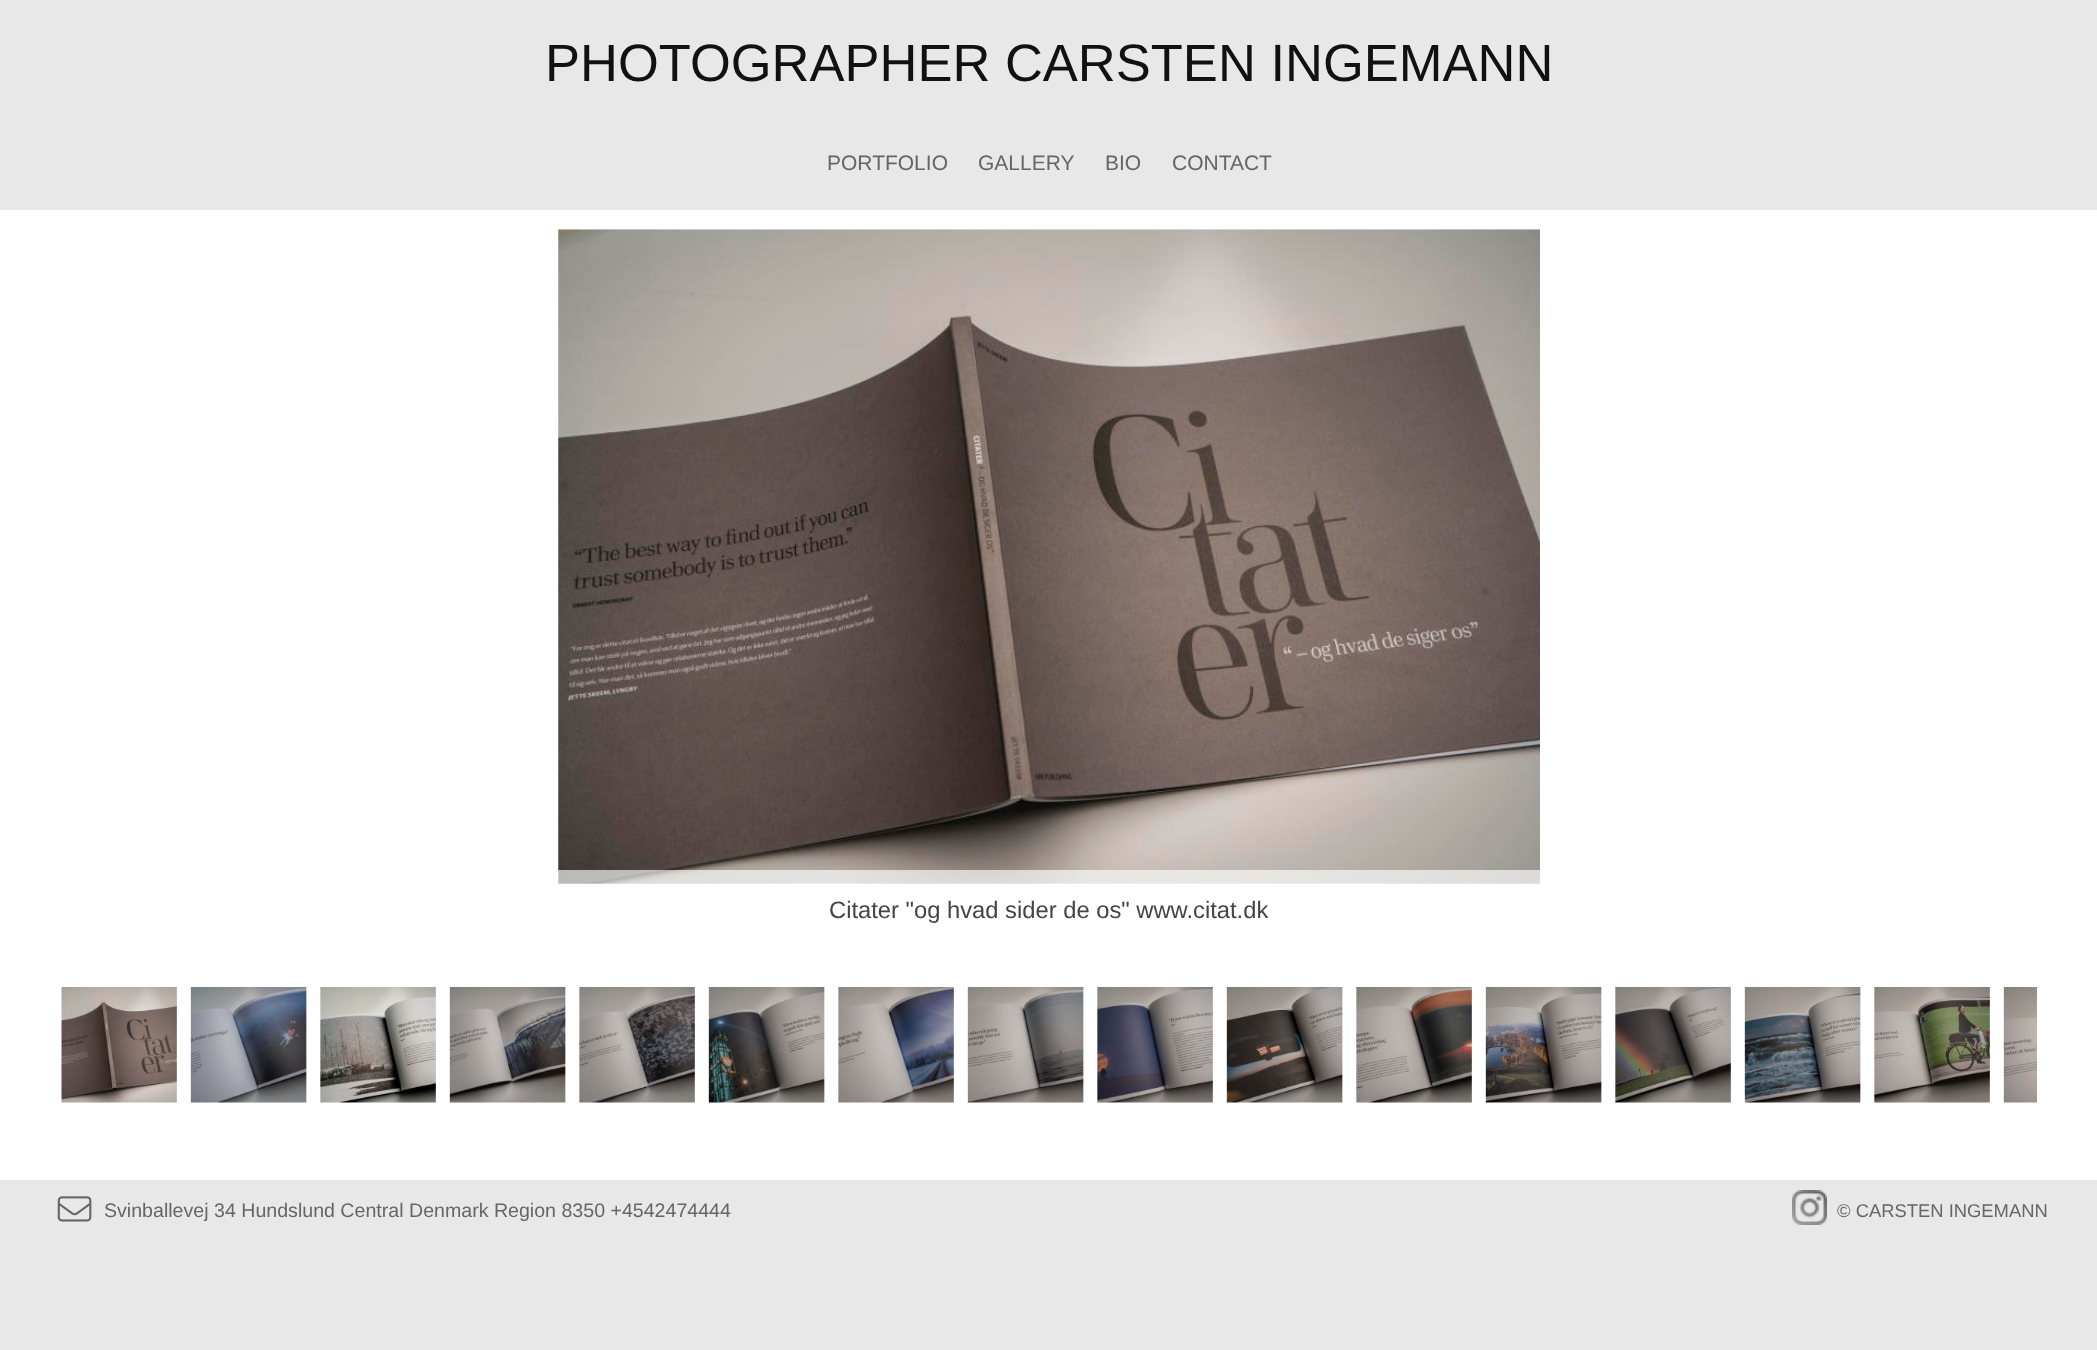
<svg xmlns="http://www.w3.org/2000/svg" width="2097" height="1350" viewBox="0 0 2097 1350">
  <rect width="100%" height="100%" fill="#e8e8e9"/>
  <path d="M0 210h2097v970H0z" fill="#fff"/>
  <image x="558" y="229" width="982" height="655" href="img/1.png"/>
  <path d="M558 870h982v14H558z" fill="#ffffffa6"/>
  <image x="61" y="987" width="116" height="116" href="img/2.png"/>
  <image x="190" y="987" width="117" height="116" href="img/3.png"/>
  <image x="320" y="987" width="116" height="116" href="img/4.png"/>
  <image x="449" y="987" width="117" height="116" href="img/5.png"/>
  <image x="579" y="987" width="116" height="116" href="img/6.png"/>
  <image x="708" y="987" width="117" height="116" href="img/7.png"/>
  <image x="838" y="987" width="116" height="116" href="img/8.png"/>
  <image x="967" y="987" width="117" height="116" href="img/9.png"/>
  <image x="1097" y="987" width="116" height="116" href="img/10.png"/>
  <image x="1226" y="987" width="117" height="116" href="img/11.png"/>
  <image x="1356" y="987" width="116" height="116" href="img/12.png"/>
  <image x="1485" y="987" width="117" height="116" href="img/13.png"/>
  <image x="1615" y="987" width="116" height="116" href="img/14.png"/>
  <image x="1744" y="987" width="117" height="116" href="img/15.png"/>
  <image x="1874" y="987" width="116" height="116" href="img/16.png"/>
  <image x="2003" y="987" width="34" height="116" href="img/17.png"/>
  <image x="57" y="1196" width="35" height="26" href="img/18.png"/>
  <image x="1792" y="1190" width="35" height="35" href="img/19.png"/>
  <text x="545" y="81" font-family="Liberation Sans" font-size="52.5" fill="#111">PHOTOGRAPHER CARSTEN INGEMANN</text>
  <g font-family="Liberation Sans" font-size="21" fill="#666">
    <text x="827" y="170">PORTFOLIO</text>
    <text x="978" y="170">GALLERY</text>
    <text x="1105" y="170">BIO</text>
    <text x="1172" y="170">CONTACT</text>
  </g>
  <text x="829" y="918" font-family="Liberation Sans" font-size="23.75" fill="#444">Citater "og hvad sider de os" www.citat.dk</text>
  <text x="104" y="1217" font-family="Liberation Sans" font-size="19.6" fill="#666">Svinballevej 34 Hundslund Central Denmark Region 8350 +4542474444</text>
  <text x="1837" y="1217" font-family="Liberation Sans" font-size="18.4" fill="#666">© CARSTEN INGEMANN</text>
</svg>
